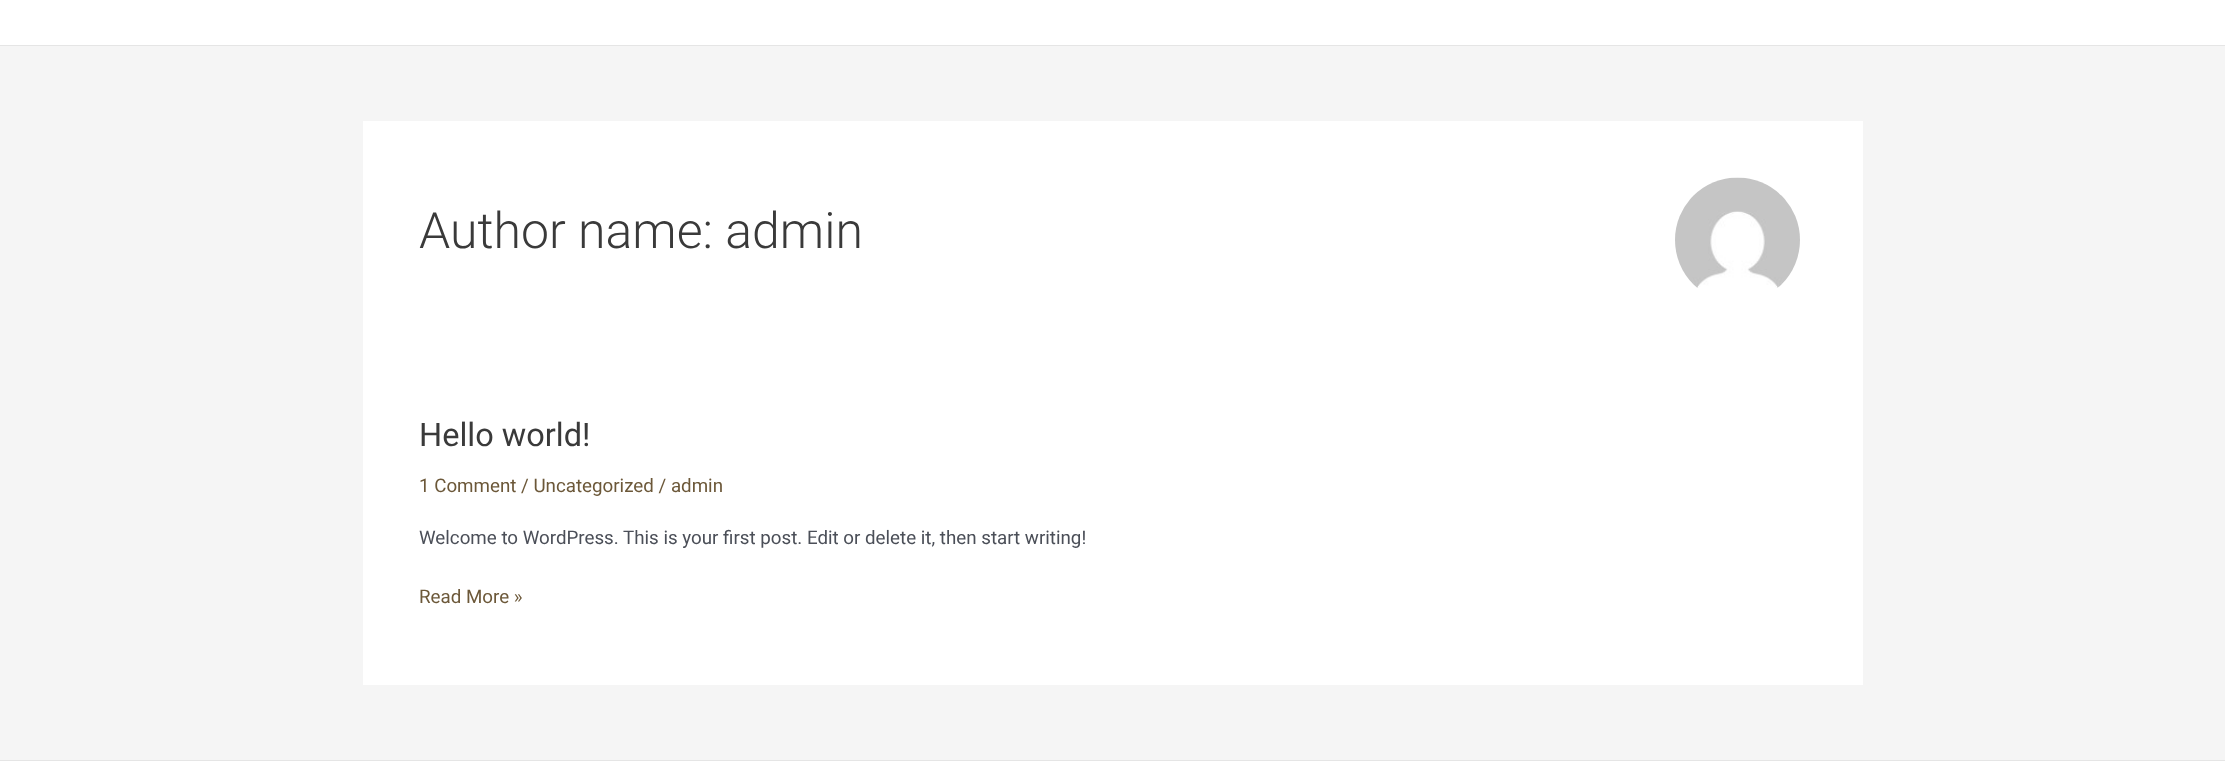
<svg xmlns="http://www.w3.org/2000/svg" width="2225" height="778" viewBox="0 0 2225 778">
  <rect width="100%" height="100%" fill="#f5f5f5"/>
  <path d="M0 0h2225v45H0z" fill="#fff"/>
  <path d="M0 45h2225v1H0z" fill="#e5e5e5"/>
  <path d="M363 121h1500v564H363z" fill="#fff"/>
  <image x="1675" y="177" width="125" height="111" href="img/1.png"/>
  <path d="M0 761h2225v17H0z" fill="#fff"/>
  <path d="M0 760h2225v1H0z" fill="#e5e5e5"/>
  <text x="419" y="248" font-family="Roboto" font-size="50" font-weight="300" fill="#3a3a3a">Author name: admin</text>
  <text x="419" y="446" font-family="Roboto" font-size="32.5" fill="#3a3a3a">Hello world!</text>
  <text x="419" y="492" font-family="Roboto" font-size="18.75" fill="#6c5839">1 Comment / Uncategorized / admin</text>
  <text x="419" y="544" font-family="Roboto" font-size="18.75" fill="#4b4f58">Welcome to WordPress. This is your first post. Edit or delete it, then start writing!</text>
  <text x="419" y="603" font-family="Roboto" font-size="18.75" fill="#6c5839">Read More »</text>
</svg>
